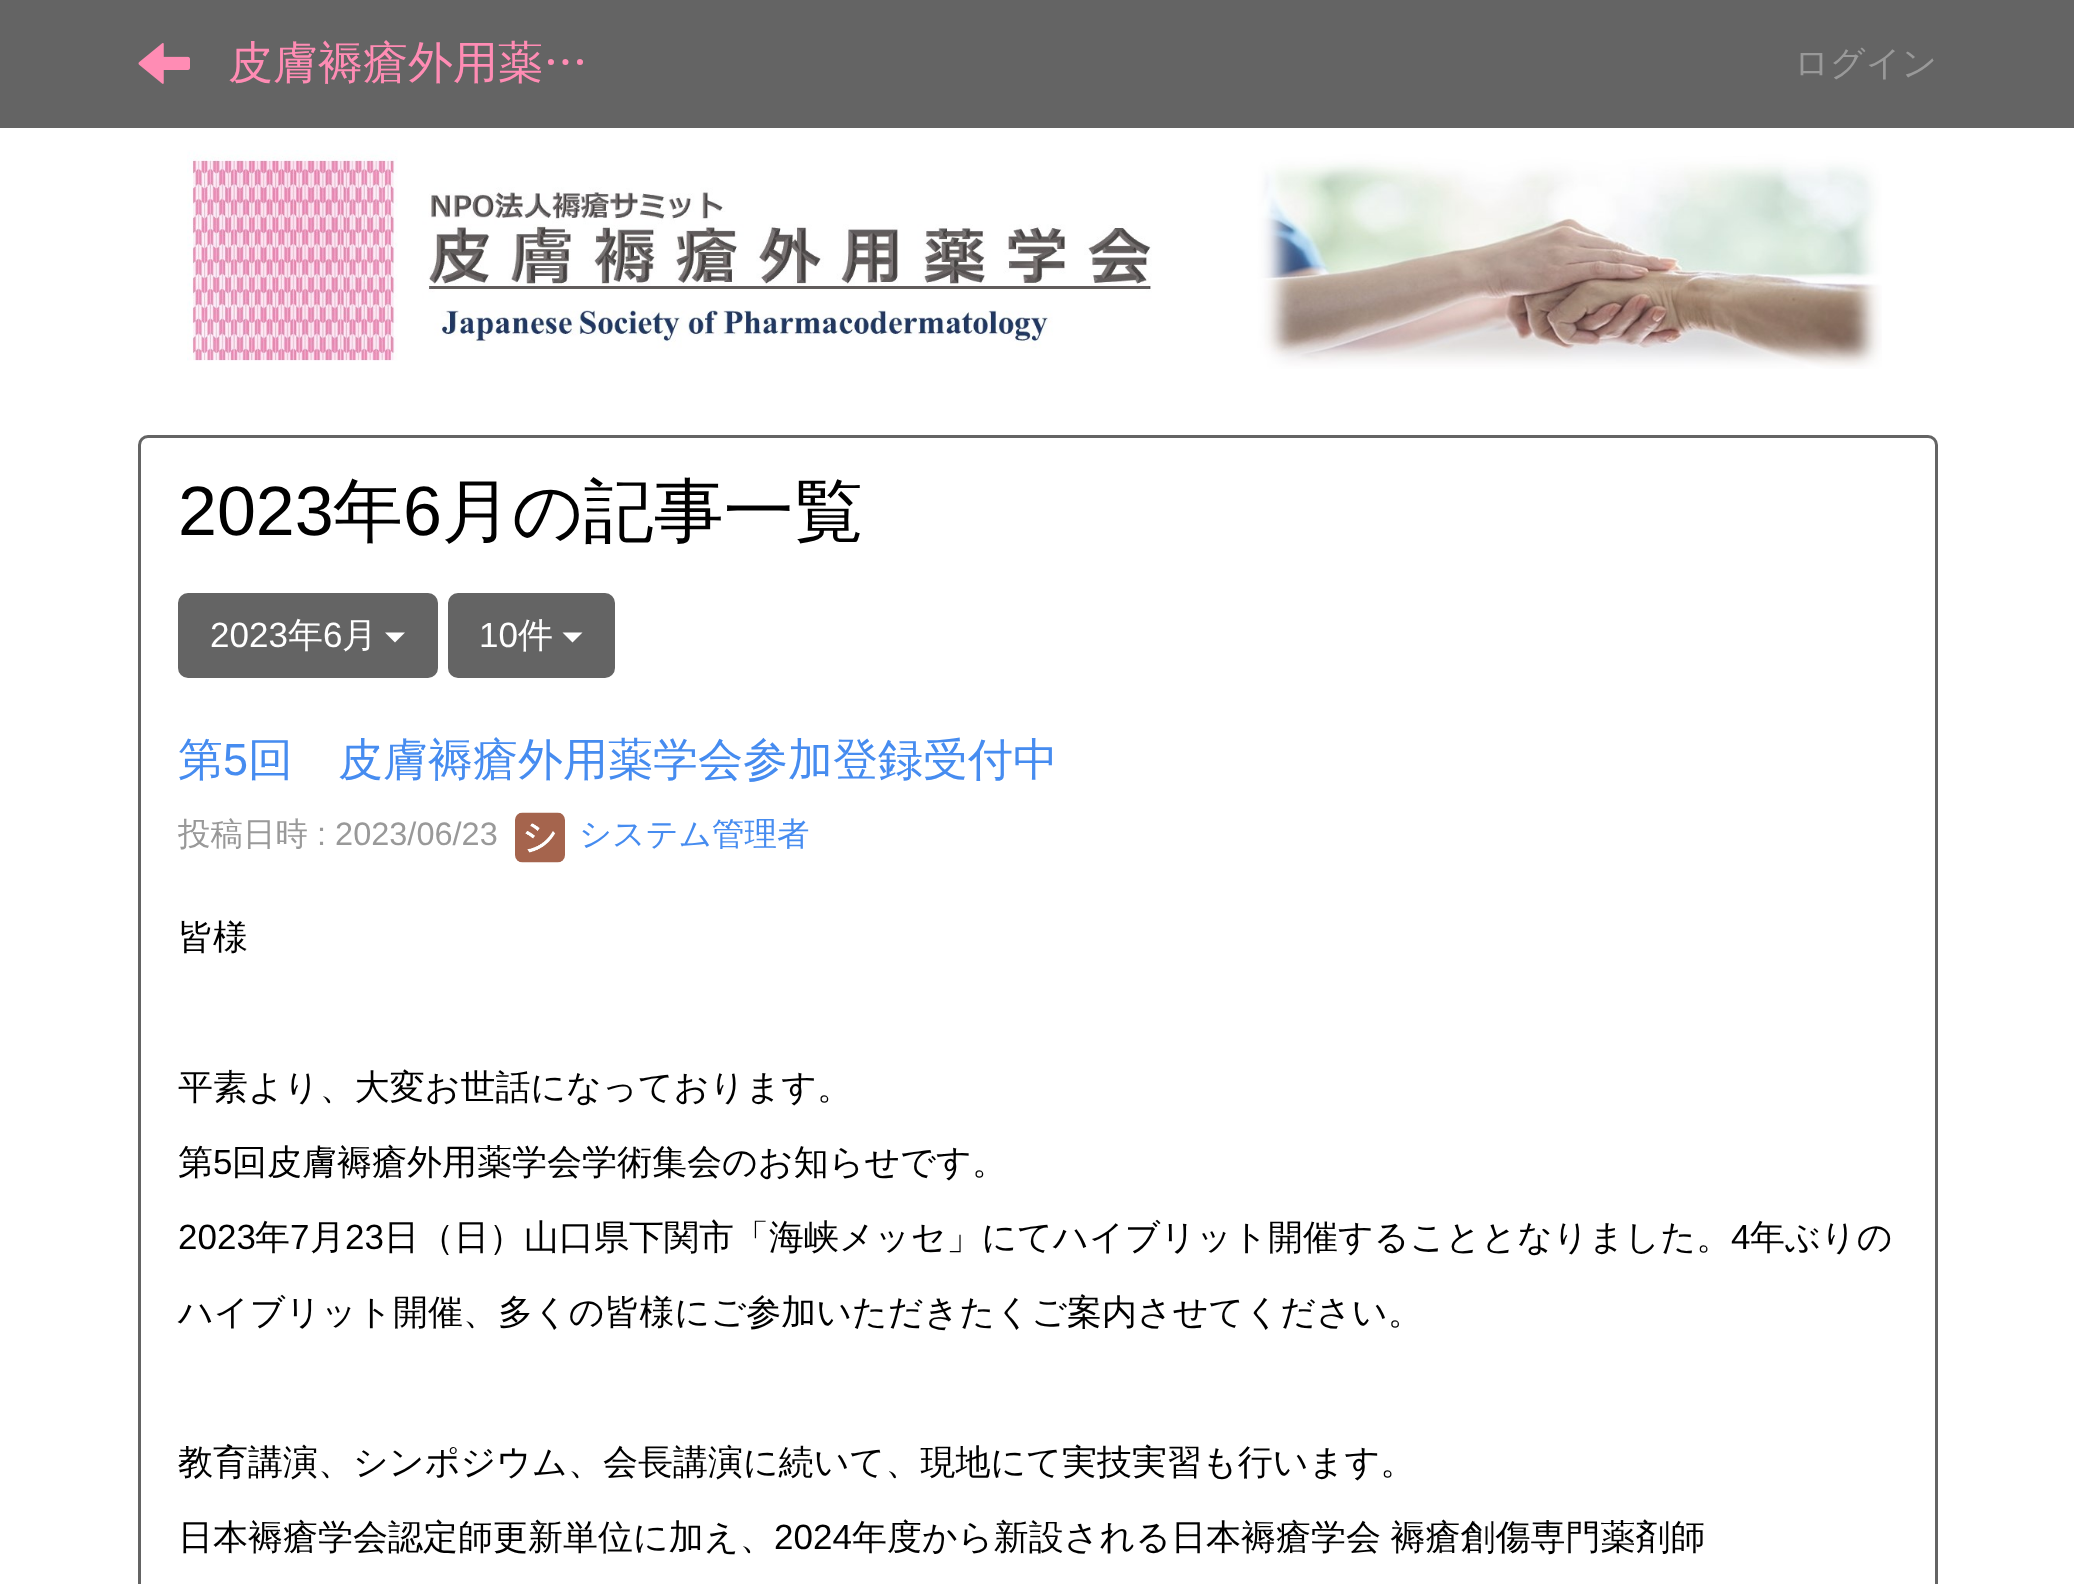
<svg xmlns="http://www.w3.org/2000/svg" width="2074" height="1584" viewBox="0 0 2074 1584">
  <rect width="100%" height="100%" fill="#fff"/>
  <path d="M0 0h2074v128H0z" fill="#646464"/>
  <image x="138" y="43" width="52" height="41" href="img/1.png"/>
  <image x="187" y="150" width="1695" height="219" href="img/2.png"/>
  <rect x="139.5" y="436.5" width="1797" height="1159" rx="8.5" fill="none" stroke="#646464" stroke-width="3"/>
  <rect x="179.5" y="594.5" width="257" height="82" rx="8.5" fill="#646464" stroke="#646464" stroke-width="3"/>
  <path d="M385 632.5H405L395 642.5Z" fill="#fff"/>
  <rect x="449.5" y="594.5" width="164" height="82" rx="8.5" fill="#646464" stroke="#646464" stroke-width="3"/>
  <path d="M562.5 632.5H582.5L572.5 642.5Z" fill="#fff"/>
  <image x="515" y="812" width="50" height="51" href="img/3.png"/>
  <text x="228" y="78" font-family="WenQuanYi Zen Hei" font-size="45" font-weight="500" fill="#ff8cb4">皮膚褥瘡外用薬…</text>
  <text x="1794" y="75" font-family="WenQuanYi Zen Hei" font-size="35" font-weight="500" fill="#999">ログイン</text>
  <text x="178" y="535" font-family="Liberation Sans" font-size="70" fill="#000">2023</text>
  <text x="333" y="535" font-family="WenQuanYi Zen Hei" font-size="70" font-weight="500" fill="#000">年</text>
  <text x="403" y="535" font-family="Liberation Sans" font-size="70" fill="#000">6</text>
  <text x="442" y="535" font-family="WenQuanYi Zen Hei" font-size="70" font-weight="500" fill="#000">月の記事一覧</text>
  <text x="210" y="647" font-family="Liberation Sans" font-size="35" fill="#fff">2023</text>
  <text x="288" y="647" font-family="WenQuanYi Zen Hei" font-size="35" font-weight="500" fill="#fff">年</text>
  <text x="323" y="647" font-family="Liberation Sans" font-size="35" fill="#fff">6</text>
  <text x="342" y="647" font-family="WenQuanYi Zen Hei" font-size="35" font-weight="500" fill="#fff">月</text>
  <text x="479" y="647" font-family="Liberation Sans" font-size="35" fill="#fff">10</text>
  <text x="518" y="647" font-family="WenQuanYi Zen Hei" font-size="35" font-weight="500" fill="#fff">件</text>
  <text x="178" y="775" font-family="WenQuanYi Zen Hei" font-size="45" font-weight="500" fill="#468cf0">第</text>
  <text x="223" y="775" font-family="Liberation Sans" font-size="45" fill="#468cf0">5</text>
  <text x="248" y="775" font-family="WenQuanYi Zen Hei" font-size="45" font-weight="500" fill="#468cf0">回　皮膚褥瘡外用薬学会参加登録受付中</text>
  <text x="178" y="845" font-family="WenQuanYi Zen Hei" font-size="32.5" font-weight="500" fill="#999">投稿日時</text>
  <text x="317" y="845" font-family="Liberation Sans" font-size="32.5" fill="#999">: 2023/06/23</text>
  <text x="579" y="845" font-family="WenQuanYi Zen Hei" font-size="32.5" font-weight="500" fill="#468cf0">システム管理者</text>
  <g font-family="WenQuanYi Zen Hei" font-size="35" font-weight="500" fill="#000">
    <text x="178" y="949">皆様</text>
    <text x="178" y="1099">平素より、大変お世話になっております。</text>
    <text x="178" y="1174">第</text>
  </g>
  <text x="213" y="1174" font-family="Liberation Sans" font-size="35" fill="#000">5</text>
  <text x="232" y="1174" font-family="WenQuanYi Zen Hei" font-size="35" font-weight="500" fill="#000">回皮膚褥瘡外用薬学会学術集会のお知らせです。</text>
  <text x="178" y="1249" font-family="Liberation Sans" font-size="35" fill="#000">2023</text>
  <text x="255" y="1249" font-family="WenQuanYi Zen Hei" font-size="35" font-weight="500" fill="#000">年</text>
  <text x="290" y="1249" font-family="Liberation Sans" font-size="35" fill="#000">7</text>
  <text x="310" y="1249" font-family="WenQuanYi Zen Hei" font-size="35" font-weight="500" fill="#000">月</text>
  <text x="345" y="1249" font-family="Liberation Sans" font-size="35" fill="#000">23</text>
  <text x="384" y="1249" font-family="WenQuanYi Zen Hei" font-size="35" font-weight="500" fill="#000">日（日）山口県下関市「海峡メッセ」にてハイブリット開催することとなりました。</text>
  <text x="1731" y="1249" font-family="Liberation Sans" font-size="35" fill="#000">4</text>
  <g font-family="WenQuanYi Zen Hei" font-size="35" font-weight="500" fill="#000">
    <text x="1750" y="1249">年ぶりの</text>
    <text x="178" y="1324">ハイブリット開催、多くの皆様にご参加いただきたくご案内させてください。</text>
    <text x="178" y="1474">教育講演、シンポジウム、会長講演に続いて、現地にて実技実習も行います。</text>
    <text x="178" y="1549">日本褥瘡学会認定師更新単位に加え、</text>
  </g>
  <text x="774" y="1549" font-family="Liberation Sans" font-size="35" fill="#000">2024</text>
  <text x="852" y="1549" word-spacing="-1" font-family="WenQuanYi Zen Hei" font-size="35" font-weight="500" fill="#000">年度から新設される日本褥瘡学会 褥瘡創傷専門薬剤師</text>
</svg>
